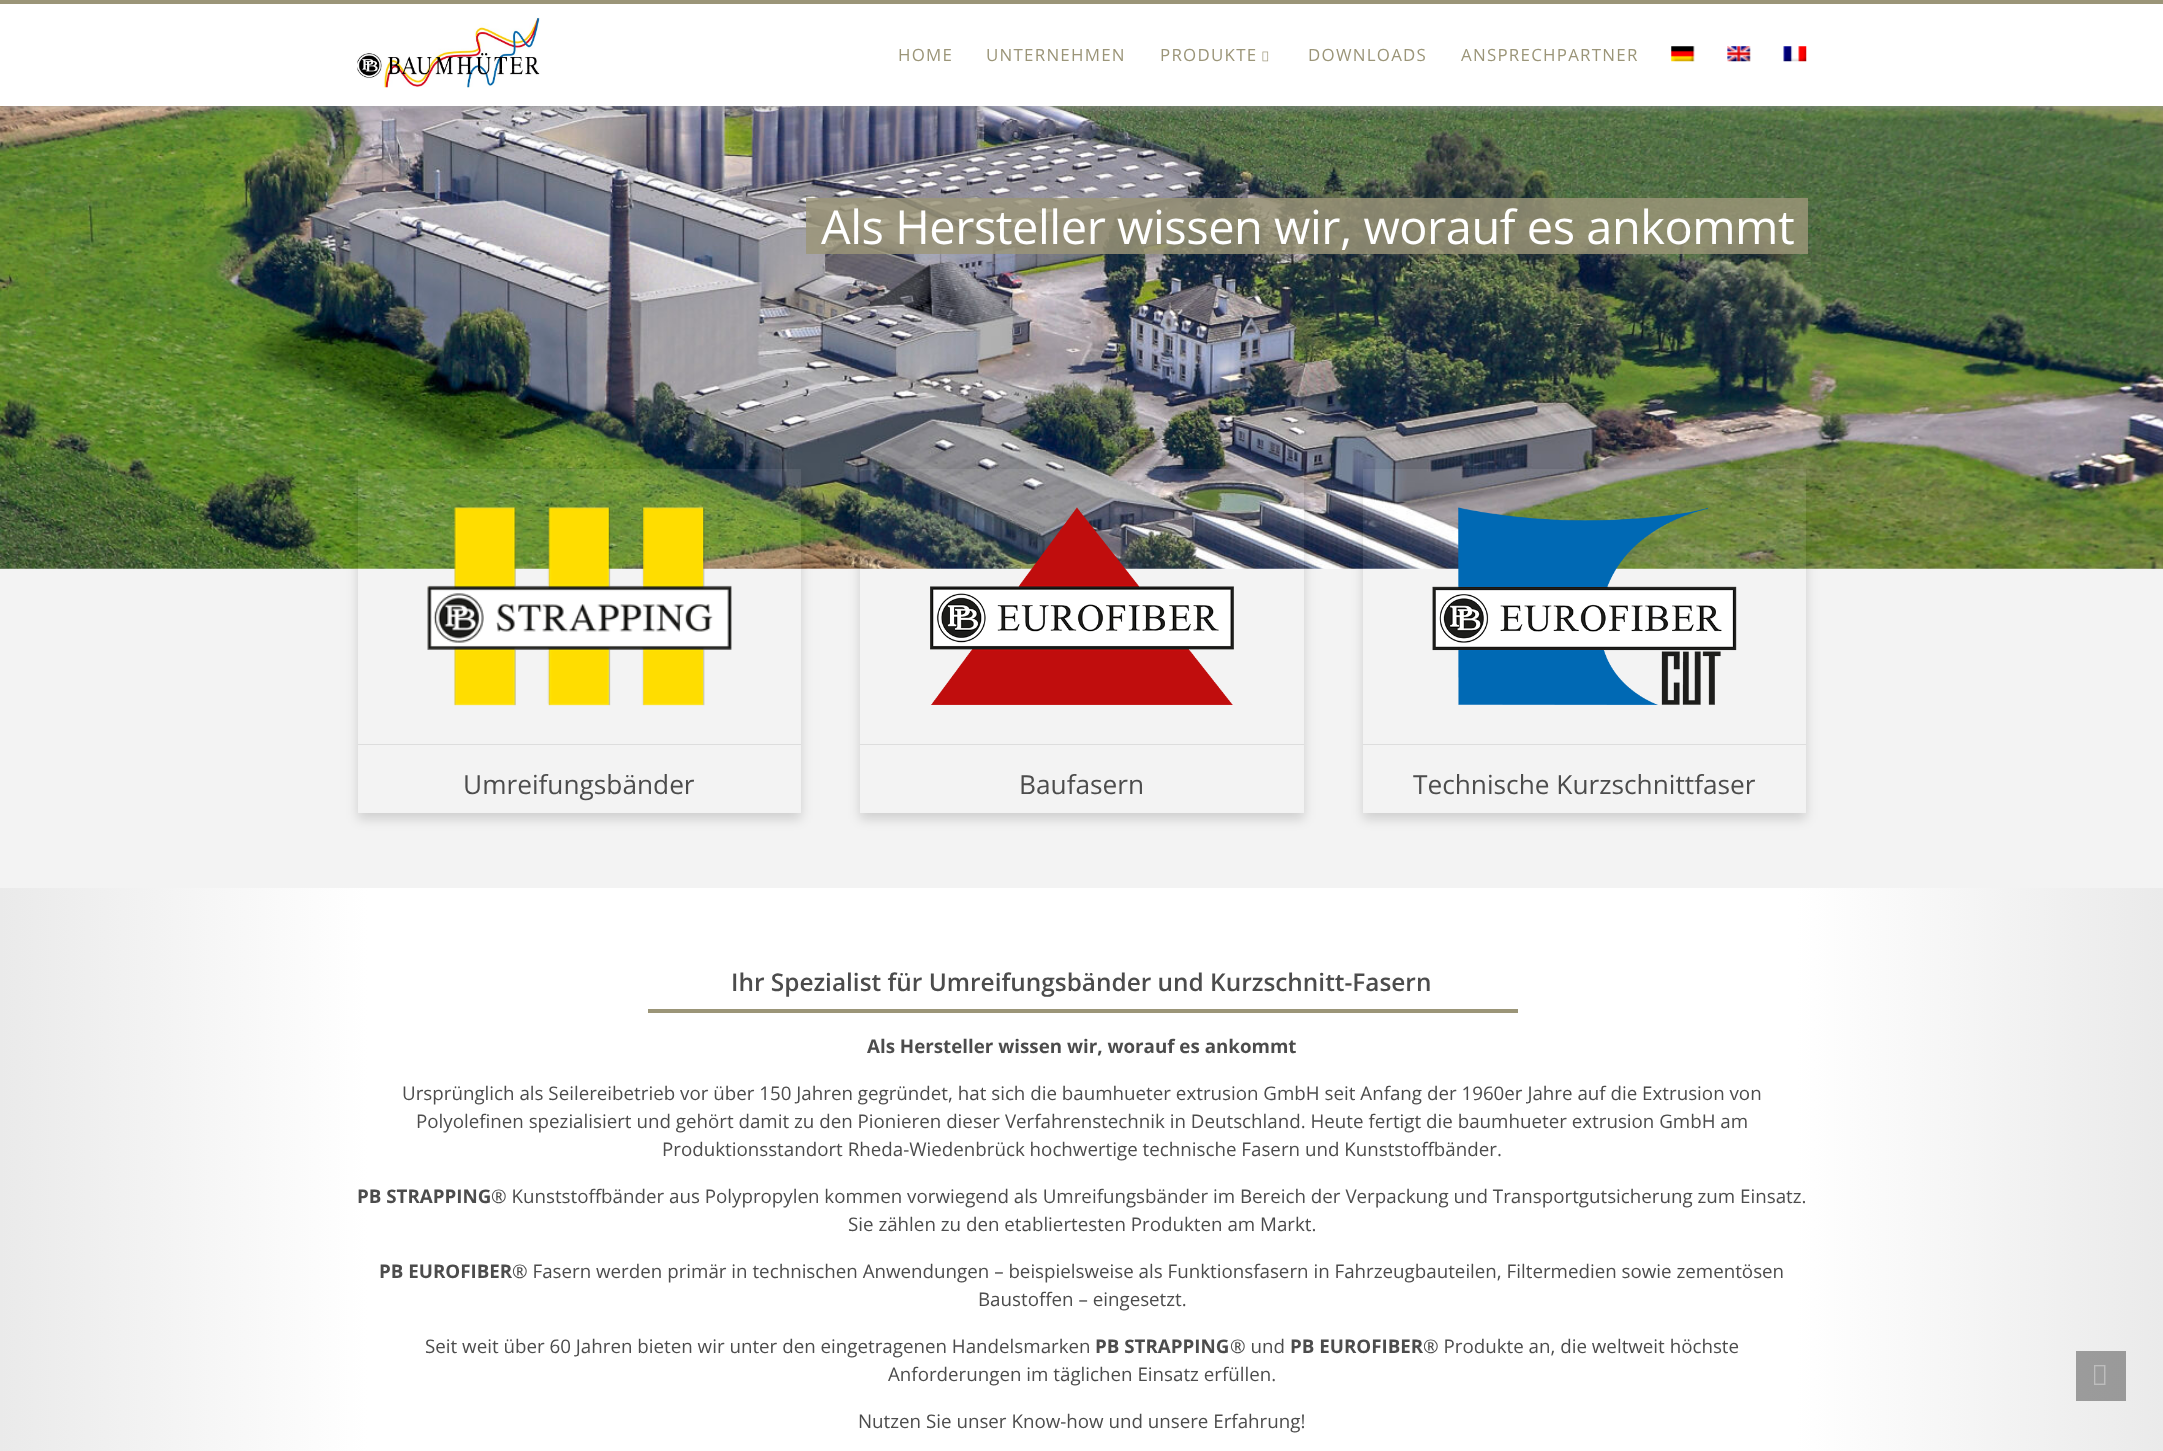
<svg xmlns="http://www.w3.org/2000/svg" width="2163" height="1451" viewBox="0 0 2163 1451">
  <defs>
    <linearGradient id="g1" gradientUnits="userSpaceOnUse" x1="0" y1="881" x2="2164" y2="881"><stop offset="0" stop-color="#eaeaea"/><stop offset="0.17" stop-color="#fff"/><stop offset="0.83" stop-color="#fff"/><stop offset="1" stop-color="#eaeaea"/></linearGradient>
    <linearGradient id="g2" gradientUnits="userSpaceOnUse" x1="0" y1="881" x2="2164" y2="881"><stop offset="0" stop-color="#989898"/><stop offset="0.17" stop-color="#a6a6a6"/><stop offset="0.83" stop-color="#a6a6a6"/><stop offset="1" stop-color="#989898"/></linearGradient>
    <clipPath id="clip1"><path d="M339 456H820V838H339ZM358 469H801V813H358Z" clip-rule="evenodd"/></clipPath>
    <clipPath id="clip2"><path d="M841 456H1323V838H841ZM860 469H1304V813H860Z" clip-rule="evenodd"/></clipPath>
    <clipPath id="clip3"><path d="M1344 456H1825V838H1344ZM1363 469H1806V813H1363Z" clip-rule="evenodd"/></clipPath>
  </defs>
  <rect width="100%" height="100%" fill="#fff"/>
  <path d="M0 568h2163v883H0z" fill="url(#g1)"/>
  <path d="M2076 1351h50v50H2076z" fill="url(#g2)"/>
  <image x="0" y="106" width="2163" height="463" href="img/6.png"/>
  <path d="M4 4h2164v106H4z" fill="#9696967d" filter="blur(3px)"/>
  <path d="M0 4h2163v102H0z" fill="#fff"/>
  <path d="M0 0h2163v4H0z" fill="#9b9578"/>
  <image x="357" y="17" width="183" height="71" href="img/1.png"/>
  <image x="1262" y="51" width="7" height="11" href="img/2.png"/>
  <image x="1671" y="46" width="24" height="16" href="img/3.png"/>
  <image x="1727" y="46" width="24" height="16" href="img/4.png"/>
  <image x="1783" y="46" width="24" height="16" href="img/5.png"/>
  <path d="M806 198h1002v56H806z" fill="#9b9578d4"/>
  <path d="M0 569h2163v319H0z" fill="#f3f3f3"/>
  <g clip-path="url(#clip1)">
    <path d="M358 475h443v344H358z" fill="#00000026" filter="blur(6px)"/>
  </g>
  <path d="M358 469h443v100H358z" fill="#ffffff12"/>
  <image x="427" y="507" width="305" height="199" href="img/7.png"/>
  <path d="M358 744h443v1H358z" fill="#ddd"/>
  <g clip-path="url(#clip2)">
    <path d="M860 475h444v344H860z" fill="#00000026" filter="blur(6px)"/>
  </g>
  <path d="M860 469h444v100H860z" fill="#ffffff12"/>
  <image x="930" y="507" width="304" height="198" href="img/8.png"/>
  <path d="M860 744h444v1H860z" fill="#ddd"/>
  <g clip-path="url(#clip3)">
    <path d="M1363 475h443v344H1363z" fill="#00000026" filter="blur(6px)"/>
  </g>
  <path d="M1363 469h443v100H1363z" fill="#ffffff12"/>
  <image x="1432" y="507" width="305" height="198" href="img/9.png"/>
  <path d="M1363 744h443v1H1363z" fill="#ddd"/>
  <path d="M648 1009h870v4H648z" fill="#9b9578"/>
  <image x="2094" y="1365" width="12" height="20" href="img/10.png"/>
  <g font-family="Open Sans" font-size="16.9" letter-spacing="1.25" fill="#9b9578">
    <text x="898" y="61">HOME</text>
    <text x="986" y="61">UNTERNEHMEN</text>
    <text x="1160" y="61">PRODUKTE</text>
    <text x="1308" y="61">DOWNLOADS</text>
    <text x="1461" y="61">ANSPRECHPARTNER</text>
  </g>
  <text x="821" y="244" font-family="Open Sans" font-size="46.9" letter-spacing="-0.45" fill="#fff">Als Hersteller wissen wir, worauf es ankommt</text>
  <g font-family="Open Sans" font-size="26.25" fill="#4c4c4c">
    <text x="463" y="794">Umreifungsbänder</text>
    <text x="1019" y="794">Baufasern</text>
    <text x="1413" y="794">Technische Kurzschnittfaser</text>
  </g>
  <text x="731" y="991" font-family="Open Sans" font-size="24.4" font-weight="600" fill="#4c4c4c">Ihr Spezialist für Umreifungsbänder und Kurzschnitt-Fasern</text>
  <text x="867" y="1053" font-family="Open Sans" font-size="18.75" font-weight="bold" fill="#4c4c4c">Als Hersteller wissen wir, worauf es ankommt</text>
  <g font-family="Open Sans" font-size="18.75" fill="#4c4c4c">
    <text x="402" y="1100">Ursprünglich als Seilereibetrieb vor über 150 Jahren gegründet, hat sich die baumhueter extrusion GmbH seit Anfang der 1960er Jahre auf die Extrusion von</text>
    <text x="416" y="1128">Polyolefinen spezialisiert und gehört damit zu den Pionieren dieser Verfahrenstechnik in Deutschland. Heute fertigt die baumhueter extrusion GmbH am</text>
    <text x="662" y="1156">Produktionsstandort Rheda-Wiedenbrück hochwertige technische Fasern und Kunststoffbänder.</text>
  </g>
  <text x="357" y="1203" font-family="Open Sans" font-size="18.75" font-weight="bold" fill="#4c4c4c">PB STRAPPING</text>
  <g font-family="Open Sans" font-size="18.75" fill="#4c4c4c">
    <text x="491" y="1203">® Kunststoffbänder aus Polypropylen kommen vorwiegend als Umreifungsbänder im Bereich der Verpackung und Transportgutsicherung zum Einsatz.</text>
    <text x="848" y="1231">Sie zählen zu den etabliertesten Produkten am Markt.</text>
  </g>
  <text x="379" y="1278" font-family="Open Sans" font-size="18.75" font-weight="bold" fill="#4c4c4c">PB EUROFIBER</text>
  <g font-family="Open Sans" font-size="18.75" fill="#4c4c4c">
    <text x="512" y="1278">® Fasern werden primär in technischen Anwendungen – beispielsweise als Funktionsfasern in Fahrzeugbauteilen, Filtermedien sowie zementösen</text>
    <text x="978" y="1306">Baustoffen – eingesetzt.</text>
    <text x="425" y="1353">Seit weit über 60 Jahren bieten wir unter den eingetragenen Handelsmarken</text>
  </g>
  <text x="1095" y="1353" font-family="Open Sans" font-size="18.75" font-weight="bold" fill="#4c4c4c">PB STRAPPING</text>
  <text x="1230" y="1353" font-family="Open Sans" font-size="18.75" fill="#4c4c4c">® und</text>
  <text x="1290" y="1353" font-family="Open Sans" font-size="18.75" font-weight="bold" fill="#4c4c4c">PB EUROFIBER</text>
  <g font-family="Open Sans" font-size="18.75" fill="#4c4c4c">
    <text x="1423" y="1353">® Produkte an, die weltweit höchste</text>
    <text x="888" y="1381">Anforderungen im täglichen Einsatz erfüllen.</text>
    <text x="858" y="1428">Nutzen Sie unser Know-how und unsere Erfahrung!</text>
  </g>
</svg>
